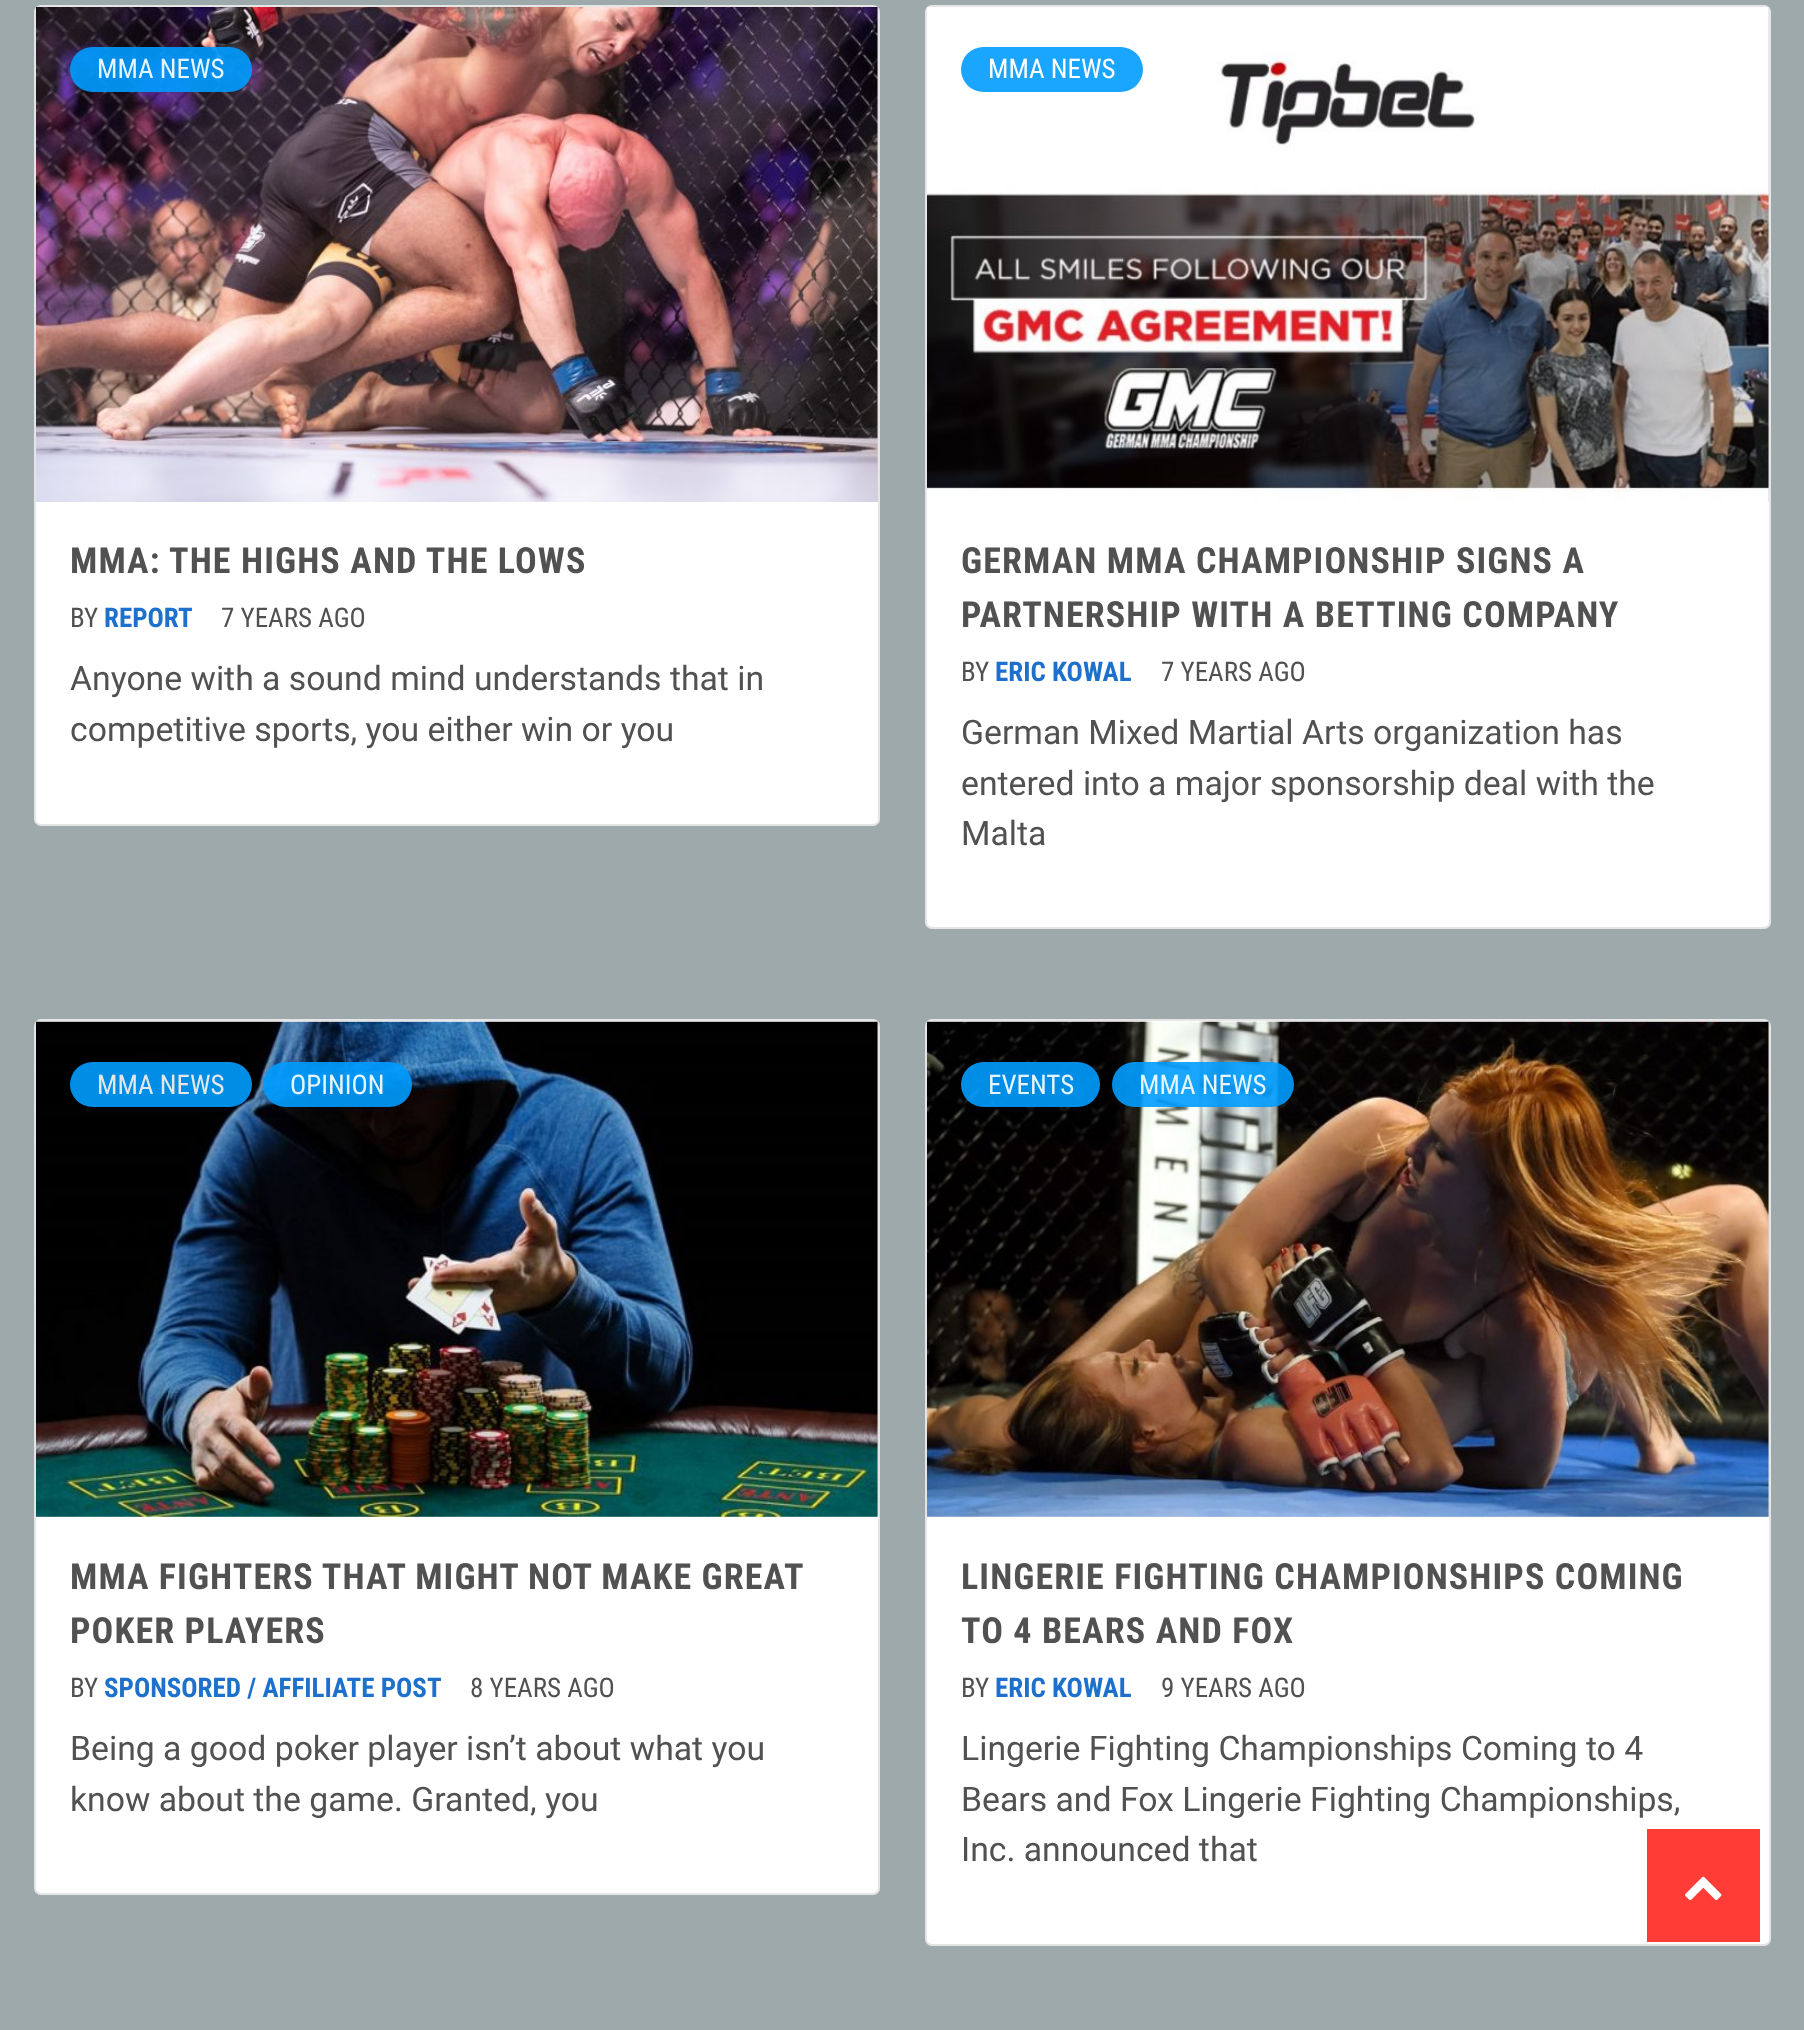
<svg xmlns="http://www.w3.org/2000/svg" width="1804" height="2030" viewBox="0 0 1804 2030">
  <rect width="100%" height="100%" fill="#9da9aa"/>
  <rect x="34" y="5" width="846" height="821" rx="7" fill="#fff"/>
  <rect x="35" y="6" width="844" height="819" rx="6" fill="none" stroke="#0001011a" stroke-width="2"/>
  <path d="M877 7h1v495H877z" fill="#d7d7d7"/>
  <image x="36" y="7" width="842" height="495" href="img/1.png"/>
  <rect x="70" y="47" width="182" height="45" rx="22.5" fill="#009cffe6"/>
  <rect x="925" y="5" width="846" height="924" rx="7" fill="#fff"/>
  <rect x="926" y="6" width="844" height="922" rx="6" fill="none" stroke="#0001011a" stroke-width="2"/>
  <path d="M1768 7h1v495H1768z" fill="#d7d7d7"/>
  <image x="927" y="7" width="842" height="495" href="img/2.png"/>
  <rect x="961" y="47" width="182" height="45" rx="22.5" fill="#1aa6ff"/>
  <rect x="34" y="1019" width="846" height="876" rx="7" fill="#fff"/>
  <rect x="35" y="1020" width="844" height="874" rx="6" fill="none" stroke="#0001011a" stroke-width="2"/>
  <path d="M36 1022h842v495H36z" fill="#d7d7d7"/>
  <image x="36" y="1021" width="842" height="496" href="img/3.png"/>
  <rect x="70" y="1062" width="182" height="45" rx="22.5" fill="#009cffe6"/>
  <rect x="263" y="1062" width="149" height="45" rx="22.5" fill="#009cffe6"/>
  <rect x="925" y="1019" width="846" height="927" rx="7" fill="#fff"/>
  <rect x="926" y="1020" width="844" height="925" rx="6" fill="none" stroke="#0001011a" stroke-width="2"/>
  <path d="M927 1022h842v495H927z" fill="#d7d7d7"/>
  <image x="927" y="1021" width="842" height="496" href="img/4.png"/>
  <rect x="961" y="1062" width="139" height="45" rx="22.5" fill="#009cffe6"/>
  <rect x="1112" y="1062" width="182" height="45" rx="22.5" fill="#009cffe6"/>
  <path d="M1647 1829h113v113H1647z" fill="#ff3c36"/>
  <image x="1685" y="1876" width="37" height="25" href="img/5.png"/>
  <text x="97" y="78" font-family="Roboto Condensed" font-size="27" fill="#e6f4fd">MMA NEWS</text>
  <text x="70" y="573" font-family="Roboto Condensed" font-size="36" font-weight="bold" letter-spacing="1.1" fill="#515151">MMA: THE HIGHS AND THE LOWS</text>
  <text x="70" y="627" font-family="Roboto Condensed" font-size="27" fill="#515151">BY</text>
  <text x="104" y="627" font-family="Roboto Condensed" font-size="27" font-weight="bold" fill="#1e70cd">REPORT</text>
  <text x="221" y="627" font-family="Roboto Condensed" font-size="27" fill="#515151">7 YEARS AGO</text>
  <g font-family="Roboto" font-size="33.75" fill="#515151">
    <text x="70" y="690">Anyone with a sound mind understands that in</text>
    <text x="70" y="741">competitive sports, you either win or you</text>
  </g>
  <text x="988" y="78" font-family="Roboto Condensed" font-size="27" fill="#fff">MMA NEWS</text>
  <g font-family="Roboto Condensed" font-size="36" font-weight="bold" letter-spacing="1.1" fill="#515151">
    <text x="961" y="573">GERMAN MMA CHAMPIONSHIP SIGNS A</text>
    <text x="961" y="627">PARTNERSHIP WITH A BETTING COMPANY</text>
  </g>
  <text x="961" y="681" font-family="Roboto Condensed" font-size="27" fill="#515151">BY</text>
  <text x="995" y="681" font-family="Roboto Condensed" font-size="27" font-weight="bold" fill="#1e70cd">ERIC KOWAL</text>
  <text x="1161" y="681" font-family="Roboto Condensed" font-size="27" fill="#515151">7 YEARS AGO</text>
  <g font-family="Roboto" font-size="33.75" fill="#515151">
    <text x="961" y="744">German Mixed Martial Arts organization has</text>
    <text x="961" y="795">entered into a major sponsorship deal with the</text>
    <text x="961" y="845">Malta</text>
  </g>
  <text x="97" y="1094" font-family="Roboto Condensed" font-size="27" fill="#e6e6e6">MMA NEWS</text>
  <text x="290" y="1094" font-family="Roboto Condensed" font-size="27" fill="#e6f4fd">OPINION</text>
  <g font-family="Roboto Condensed" font-size="36" font-weight="bold" letter-spacing="1.1" fill="#515151">
    <text x="70" y="1589" word-spacing="-0.25">MMA FIGHTERS THAT MIGHT NOT MAKE GREAT</text>
    <text x="70" y="1643">POKER PLAYERS</text>
  </g>
  <text x="70" y="1697" font-family="Roboto Condensed" font-size="27" fill="#515151">BY</text>
  <text x="104" y="1697" font-family="Roboto Condensed" font-size="27" font-weight="bold" fill="#1e70cd">SPONSORED / AFFILIATE POST</text>
  <text x="470" y="1697" font-family="Roboto Condensed" font-size="27" fill="#515151">8 YEARS AGO</text>
  <g font-family="Roboto" font-size="33.75" fill="#515151">
    <text x="70" y="1760">Being a good poker player isn’t about what you</text>
    <text x="70" y="1811">know about the game. Granted, you</text>
  </g>
  <g font-family="Roboto Condensed" font-size="27" fill="#e6f4fd">
    <text x="988" y="1094">EVENTS</text>
    <text x="1139" y="1094">MMA NEWS</text>
  </g>
  <g font-family="Roboto Condensed" font-size="36" font-weight="bold" letter-spacing="1.1" fill="#515151">
    <text x="961" y="1589">LINGERIE FIGHTING CHAMPIONSHIPS COMING</text>
    <text x="961" y="1643">TO 4 BEARS AND FOX</text>
  </g>
  <text x="961" y="1697" font-family="Roboto Condensed" font-size="27" fill="#515151">BY</text>
  <text x="995" y="1697" font-family="Roboto Condensed" font-size="27" font-weight="bold" fill="#1e70cd">ERIC KOWAL</text>
  <text x="1161" y="1697" font-family="Roboto Condensed" font-size="27" fill="#515151">9 YEARS AGO</text>
  <g font-family="Roboto" font-size="33.75" fill="#515151">
    <text x="961" y="1760">Lingerie Fighting Championships Coming to 4</text>
    <text x="961" y="1811">Bears and Fox Lingerie Fighting Championships,</text>
    <text x="961" y="1861">Inc. announced that</text>
  </g>
</svg>
